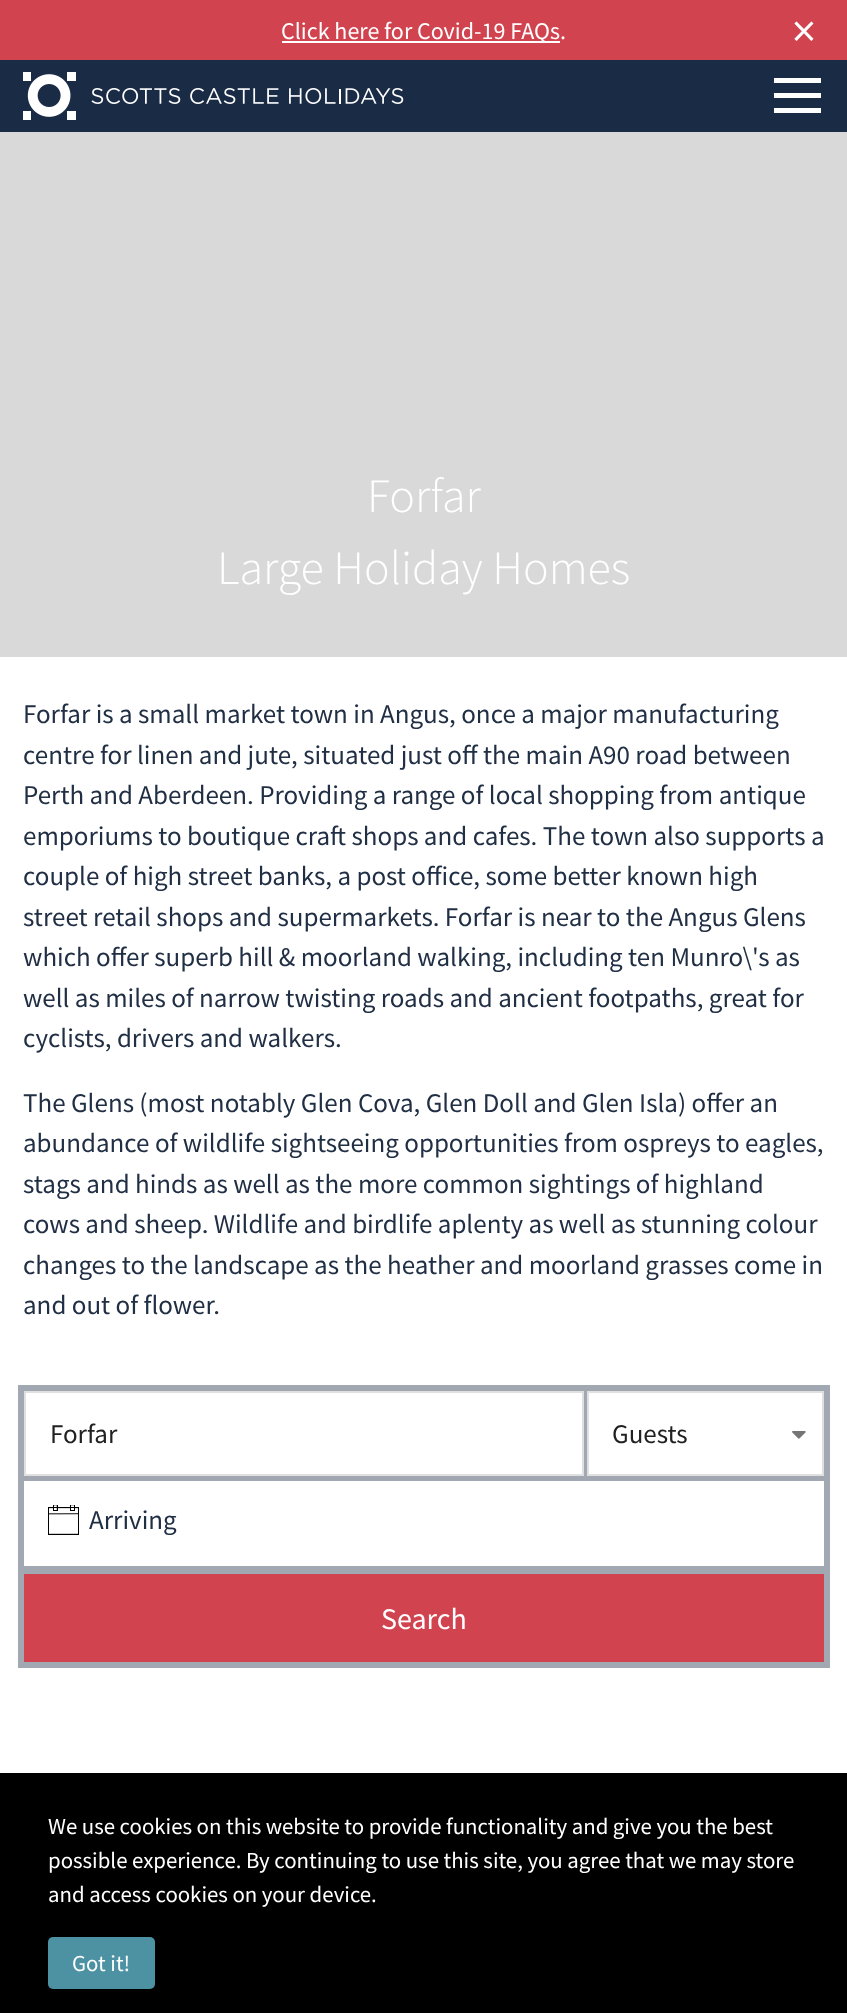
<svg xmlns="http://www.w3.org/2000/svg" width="847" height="2013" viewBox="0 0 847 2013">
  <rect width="100%" height="100%" fill="#fff"/>
  <path d="M0 0h847v60H0z" fill="#d1434f"/>
  <path d="M282 41h278v2H282z" fill="#fff"/>
  <path d="M0 60h847v72H0z" fill="#1a2b45"/>
  <image x="23" y="72" width="381" height="48" href="img/1.png"/>
  <path d="M774 78h47v5H774z" fill="#fff"/>
  <path d="M774 93h47v5H774z" fill="#fff"/>
  <path d="M774 108h47v5H774z" fill="#fff"/>
  <path d="M0 132h847v525H0z" fill="#d9d9d9"/>
  <path d="M18 1385h812v283H18z" fill="#a2a8b2"/>
  <path d="M25 1392h558v83H25z" fill="#fff" stroke="#e0e0e0" stroke-width="2"/>
  <path d="M589 1393h233v81H589z" fill="#fff"/>
  <image x="792" y="1431" width="14" height="8" href="img/2.png"/>
  <path d="M588 1392h235v83H588z" fill="none" stroke="#e0e0e0" stroke-width="2"/>
  <path d="M24 1481h800v85H24z" fill="#fff"/>
  <image x="48" y="1505" width="31" height="30" href="img/3.png"/>
  <path d="M24 1574h800v88H24z" fill="#d1434f"/>
  <path d="M0 1773h847v240H0z" fill="#000"/>
  <rect x="48" y="1937" width="107" height="52" rx="5" fill="#4c92a3"/>
  <text x="281" y="39" font-family="Source Sans Pro" font-size="24" fill="#fff">Click here for Covid-19 FAQs.</text>
  <text x="792" y="47" font-family="Source Sans Pro" font-size="48" fill="#fff">×</text>
  <g font-family="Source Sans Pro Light" font-size="48" font-weight="300" fill="#fff">
    <text x="367" y="512">Forfar</text>
    <text x="217" y="584">Large Holiday Homes</text>
  </g>
  <g font-family="Source Sans Pro" font-size="27" fill="#212f45">
    <text x="23" y="723">Forfar is a small market town in Angus, once a major manufacturing</text>
    <text x="23" y="764">centre for linen and jute, situated just off the main A90 road between</text>
    <text x="23" y="804">Perth and Aberdeen. Providing a range of local shopping from antique</text>
    <text x="23" y="845">emporiums to boutique craft shops and cafes. The town also supports a</text>
    <text x="23" y="885">couple of high street banks, a post office, some better known high</text>
    <text x="23" y="926">street retail shops and supermarkets. Forfar is near to the Angus Glens</text>
    <text x="23" y="966">which offer superb hill &amp; moorland walking, including ten Munro\'s as</text>
    <text x="23" y="1007">well as miles of narrow twisting roads and ancient footpaths, great for</text>
    <text x="23" y="1047">cyclists, drivers and walkers.</text>
    <text x="23" y="1112">The Glens (most notably Glen Cova, Glen Doll and Glen Isla) offer an</text>
    <text x="23" y="1152">abundance of wildlife sightseeing opportunities from ospreys to eagles,</text>
    <text x="23" y="1193">stags and hinds as well as the more common sightings of highland</text>
    <text x="23" y="1233">cows and sheep. Wildlife and birdlife aplenty as well as stunning colour</text>
    <text x="23" y="1274">changes to the landscape as the heather and moorland grasses come in</text>
    <text x="23" y="1314">and out of flower.</text>
  </g>
  <g font-family="Source Sans Pro" font-size="27" fill="#212121">
    <text x="50" y="1443">Forfar</text>
    <text x="612" y="1443">Guests</text>
  </g>
  <text x="89" y="1529" font-family="Source Sans Pro" font-size="27" fill="#212f45">Arriving</text>
  <text x="381" y="1629" font-family="Source Sans Pro" font-size="30" fill="#fff">Search</text>
  <g font-family="Source Sans Pro" font-size="22.8" fill="#fff">
    <text x="48" y="1834">We use cookies on this website to provide functionality and give you the best</text>
    <text x="48" y="1868">possible experience. By continuing to use this site, you agree that we may store</text>
    <text x="48" y="1902">and access cookies on your device.</text>
    <text x="72" y="1971">Got it!</text>
  </g>
</svg>
